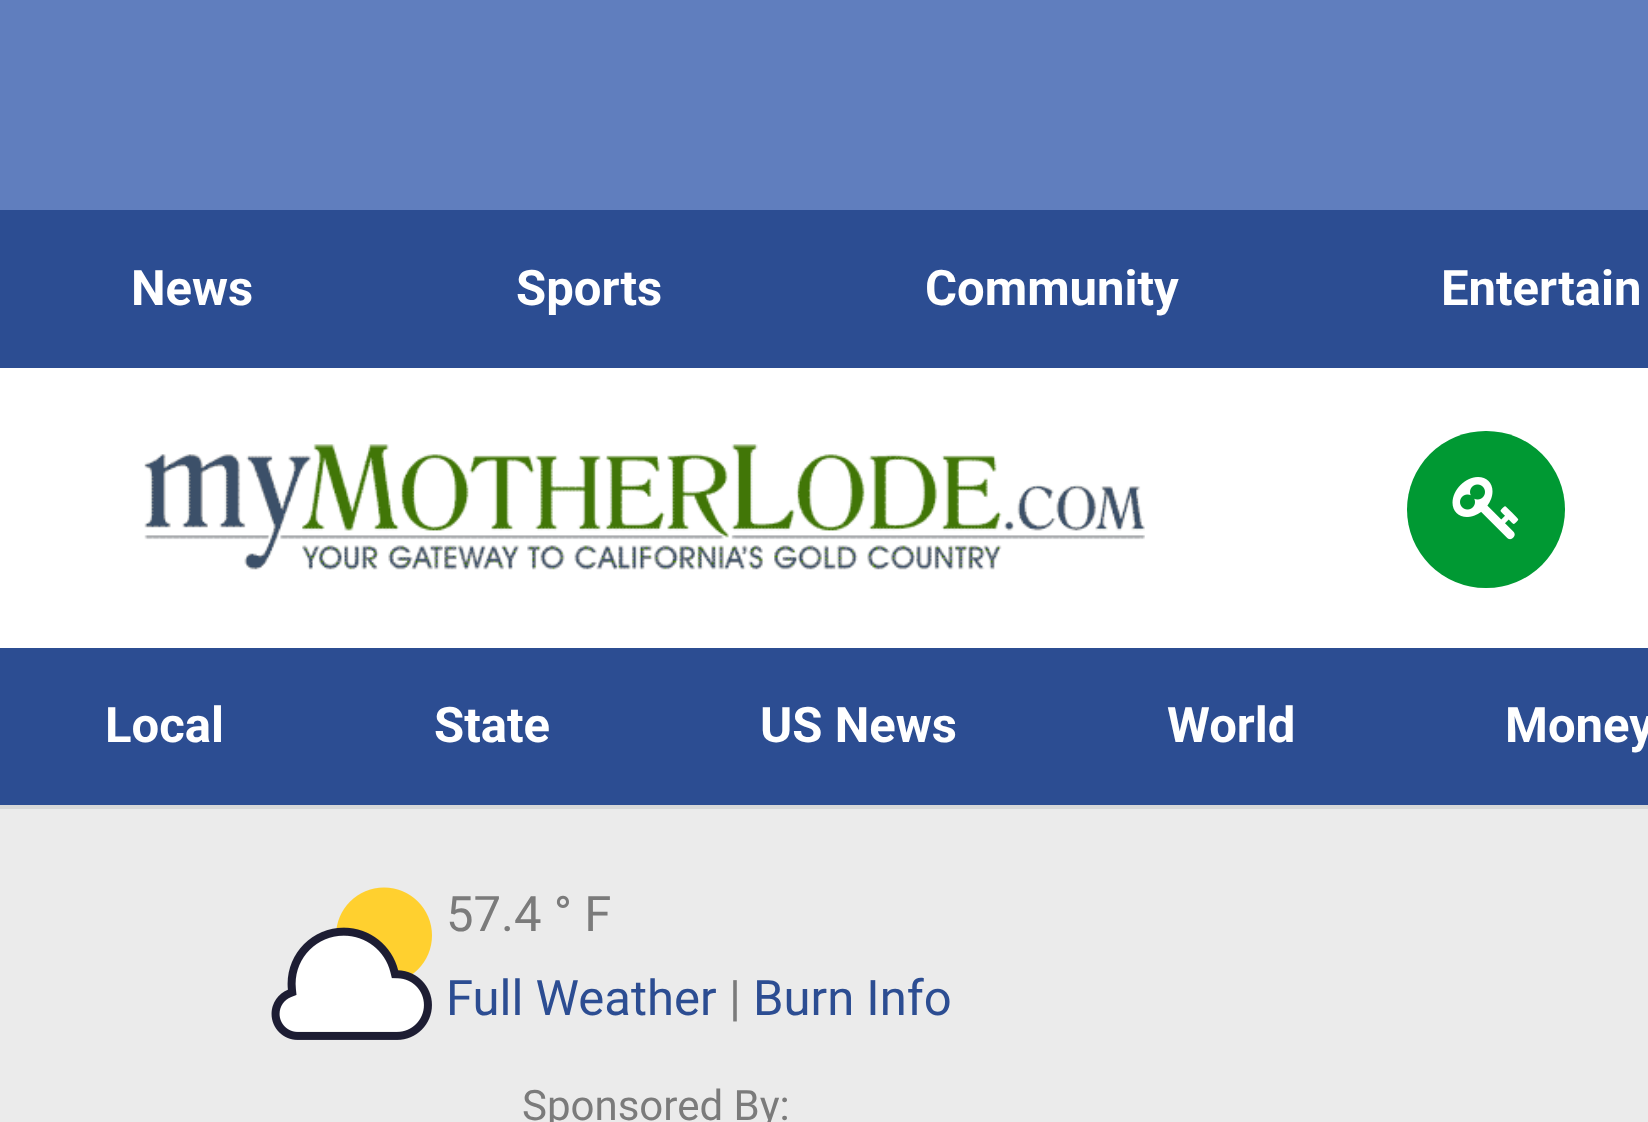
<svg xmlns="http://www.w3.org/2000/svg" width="1648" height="1122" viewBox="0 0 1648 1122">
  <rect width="100%" height="100%" fill="#607ebe"/>
  <path d="M0 368h1648v280H0z" fill="#fff"/>
  <path d="M0 210h1648v158H0z" fill="#2c4d92"/>
  <image x="144" y="444" width="1001" height="126" href="img/1.png"/>
  <rect x="1407" y="431" width="158" height="157" rx="78.5" fill="#093"/>
  <image x="1452" y="477" width="67" height="63" href="img/2.png"/>
  <path d="M0 805V809H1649V651H1648V805Z" fill="#d8d8d8"/>
  <path d="M0 648h1648v157H0z" fill="#2c4d92"/>
  <path d="M0 809h1648v313H0z" fill="#ebebeb"/>
  <image x="271" y="887" width="161" height="153" href="img/3.png"/>
  <g font-family="Roboto" font-size="49" font-weight="bold" fill="#fff">
    <text x="131" y="305">News</text>
    <text x="516" y="305">Sports</text>
    <text x="925" y="305">Community</text>
    <text x="1441" y="305">Entertain</text>
    <text x="105" y="742">Local</text>
    <text x="434" y="742">State</text>
    <text x="760" y="742">US News</text>
    <text x="1167" y="742">World</text>
    <text x="1505" y="742">Money</text>
  </g>
  <text x="446" y="931" font-family="Roboto" font-size="49" fill="#7b7b7b">57.4 ° F</text>
  <text x="446" y="1015" font-family="Roboto" font-size="49" fill="#2c4d92">Full Weather</text>
  <text x="729" y="1015" font-family="Roboto" font-size="49" fill="#7b7b7b">|</text>
  <text x="753" y="1015" font-family="Roboto" font-size="49" fill="#2c4d92">Burn Info</text>
  <text x="522" y="1120" font-family="Roboto" font-size="42" fill="#7b7b7b">Sponsored By:</text>
</svg>
